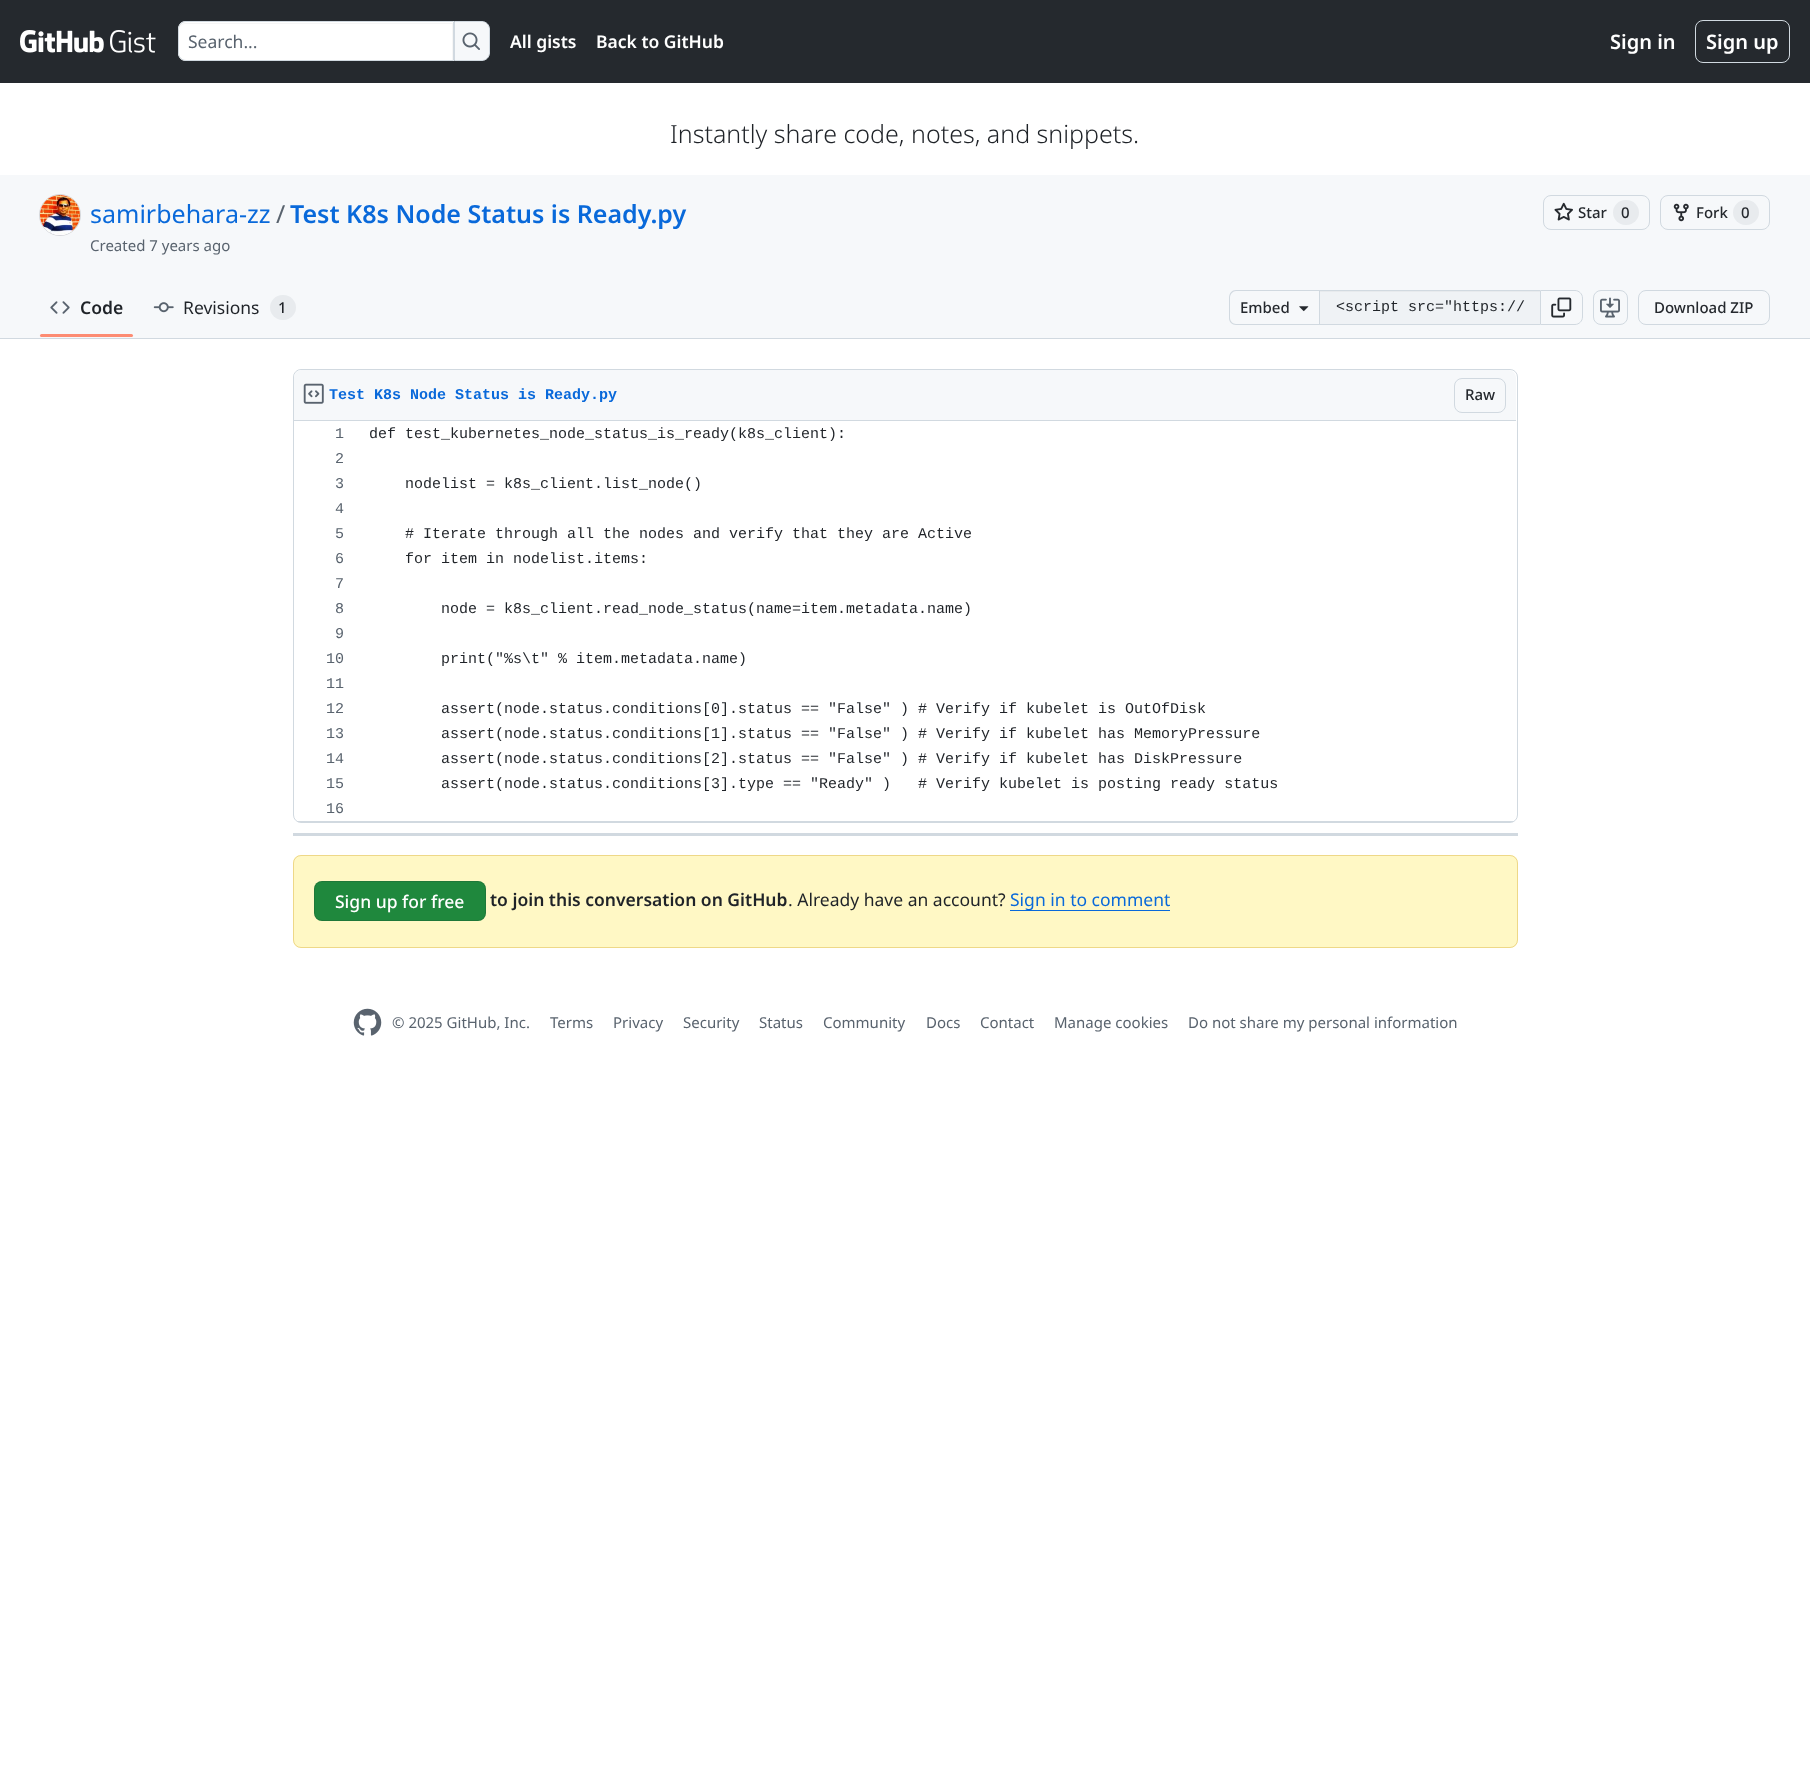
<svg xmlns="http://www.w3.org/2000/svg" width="1810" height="1768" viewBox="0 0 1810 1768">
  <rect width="100%" height="100%" fill="#fff"/>
  <path d="M0 0h1810v83H0z" fill="#25292e"/>
  <image x="20" y="30" width="84" height="23" href="img/1.png"/>
  <image x="110" y="30" width="46" height="23" href="img/2.png"/>
  <path d="M186 21H454V61H186C181.5 61 178 57.5 178 53V29C178 24.5 181.5 21 186 21Z" fill="#fff"/>
  <path d="M185 24H452V60H453V23H185C182 23 179 26 179 29V30C179 27 182 24 185 24Z" fill="#f6f6f6"/>
  <path d="M186 21.5H453.5V60.5H186C182 60.5 178.5 57 178.5 53V29C178.5 25 182 21.5 186 21.5Z" fill="none" stroke="#d1d9e0"/>
  <path d="M454.5 21.5H482C486 21.5 489.5 25 489.5 29V53C489.5 57 486 60.5 482 60.5H454.5Z" fill="#f6f8fa" stroke="#d1d9e0"/>
  <image x="462" y="32" width="18" height="18" href="img/3.png"/>
  <rect x="1695.5" y="20.5" width="94" height="42" rx="7.5" fill="none" stroke="#d1d9e0"/>
  <path d="M0 175h1810v163H0z" fill="#f6f8fa"/>
  <path d="M0 338h1810v1H0z" fill="#d1d9e0"/>
  <circle cx="60" cy="215" r="20.5" fill="none" stroke="#d6d8db"/>
  <circle cx="60" cy="215" r="20" fill="#fff"/>
  <image x="40" y="195" width="40" height="40" href="img/4.png"/>
  <rect x="1543.5" y="195.5" width="106" height="34" rx="7.5" fill="none" stroke="#d1d9e0"/>
  <image x="1554" y="202" width="19" height="19" href="img/5.png"/>
  <rect x="1613" y="200" width="26" height="25" rx="12.5" fill="#e8ebee"/>
  <rect x="1660.5" y="195.5" width="109" height="34" rx="7.5" fill="none" stroke="#d1d9e0"/>
  <image x="1673" y="203" width="16" height="19" href="img/6.png"/>
  <rect x="1733" y="200" width="26" height="25" rx="12.5" fill="#e8ebee"/>
  <image x="50" y="301" width="20" height="13" href="img/7.png"/>
  <rect x="40" y="334" width="93" height="3" rx="1.5" fill="#fd8c73"/>
  <image x="153" y="302" width="21" height="11" href="img/8.png"/>
  <rect x="270" y="295" width="26" height="25" rx="12.5" fill="#e8ebee"/>
  <path d="M1236 290H1319V325H1236C1232 325 1229 322 1229 318V298C1229 293 1232 290 1236 290ZM1236 291H1319V324H1236C1233 324 1230 321 1230 318V298C1230 294 1233 291 1236 291Z" fill="#d1d9e0" fill-rule="evenodd"/>
  <image x="1299" y="306" width="10" height="6" href="img/9.png"/>
  <path d="M1320 292h220v32H1320z" fill="#eff2f5"/>
  <path d="M1320 291h220v1H1320z" fill="#e7eaed"/>
  <path d="M1319 290h221v1H1319z" fill="#d1d9e0"/>
  <path d="M1319 324h221v1H1319z" fill="#d1d9e0"/>
  <path d="M1319 290h1v35H1319z" fill="#d1d9e0"/>
  <path d="M1540.5 290.5H1575C1579 290.5 1582.5 294 1582.5 298V317C1582.5 321 1579 324.5 1575 324.5H1540.5Z" fill="none" stroke="#d1d9e0"/>
  <image x="1551" y="297" width="21" height="21" href="img/10.png"/>
  <rect x="1593.5" y="290.5" width="34" height="34" rx="7.5" fill="none" stroke="#d1d9e0"/>
  <image x="1600" y="297" width="20" height="21" href="img/11.png"/>
  <rect x="1638.5" y="290.5" width="131" height="34" rx="7.5" fill="none" stroke="#d1d9e0"/>
  <rect x="293.5" y="369.5" width="1224" height="453" rx="7.5" fill="none" stroke="#d1d9e0"/>
  <path d="M302 370H1508C1512.5 370 1516 373.5 1516 378V421H294V378C294 373.5 297.5 370 302 370Z" fill="#f6f8fa"/>
  <path d="M294 420h1222v1H294z" fill="#d1d9e0"/>
  <image x="303" y="383" width="21" height="21" href="img/12.png"/>
  <rect x="1454.5" y="378.5" width="51" height="34" rx="7.5" fill="none" stroke="#d1d9e0"/>
  <path d="M298 821h1215v1H298z" fill="#d1d9e0"/>
  <path d="M293 833h1225v3H293z" fill="#d1d9e0"/>
  <rect x="293" y="855" width="1225" height="93" rx="8" fill="#fff8c5"/>
  <rect x="293.5" y="855.5" width="1224" height="92" rx="7.5" fill="none" stroke="#d4a72c66"/>
  <rect x="314" y="881" width="172" height="40" rx="8" fill="#1f883d"/>
  <rect x="314.5" y="881.5" width="171" height="39" rx="7.5" fill="none" stroke="#1f232826"/>
  <path d="M1010 910h160v1H1010z" fill="#0969da"/>
  <image x="353" y="1008" width="29" height="28" href="img/13.png"/>
  <text x="188" y="48" font-family="Noto Sans" font-size="17.5" fill="#59636e">Search...</text>
  <g font-family="Noto Sans" font-size="17.5" font-weight="600" fill="#fff">
    <text x="510" y="48">All gists</text>
    <text x="596" y="48">Back to GitHub</text>
  </g>
  <g font-family="Noto Sans" font-size="20" font-weight="600" fill="#fff">
    <text x="1610" y="49">Sign in</text>
    <text x="1706" y="49">Sign up</text>
  </g>
  <text x="670" y="143" font-family="Noto Sans" font-size="25" font-weight="300" fill="#1f2328">Instantly share code, notes, and snippets.</text>
  <text x="90" y="223" font-family="Noto Sans" font-size="25" fill="#0969da">samirbehara-zz</text>
  <text x="276" y="223" font-family="Noto Sans" font-size="25" fill="#59636e">/</text>
  <text x="290" y="223" font-family="Noto Sans" font-size="25" font-weight="600" fill="#0969da">Test K8s Node Status is Ready.py</text>
  <text x="90" y="251" font-family="Noto Sans" font-size="15" fill="#59636e">Created 7 years ago</text>
  <g font-family="Noto Sans" font-size="15" font-weight="500" fill="#25292e">
    <text x="1578" y="218">Star</text>
    <text x="1621" y="218">0</text>
    <text x="1696" y="218">Fork</text>
    <text x="1741" y="218">0</text>
  </g>
  <text x="80" y="314" font-family="Noto Sans" font-size="17.5" font-weight="600" fill="#1f2328">Code</text>
  <text x="183" y="314" font-family="Noto Sans" font-size="17.5" fill="#1f2328">Revisions</text>
  <text x="278" y="313" font-family="Noto Sans" font-size="15" font-weight="500" fill="#1f2328">1</text>
  <text x="1240" y="313" font-family="Noto Sans" font-size="15" font-weight="500" fill="#25292e">Embed</text>
  <text x="1336" y="311" font-family="Liberation Mono" font-size="15" fill="#1f2328">&lt;script src="https://</text>
  <text x="1654" y="313" font-family="Noto Sans" font-size="15" font-weight="500" fill="#25292e">Download ZIP</text>
  <text x="329" y="399" font-family="Liberation Mono" font-size="15" font-weight="bold" fill="#0969da">Test K8s Node Status is Ready.py</text>
  <text x="1465" y="400" font-family="Noto Sans" font-size="15" font-weight="500" fill="#25292e">Raw</text>
  <text x="335" y="438" font-family="Liberation Mono" font-size="15" fill="#59636e">1</text>
  <text x="369" y="438" font-family="Liberation Mono" font-size="15" fill="#1f2328">def test_kubernetes_node_status_is_ready(k8s_client):</text>
  <g font-family="Liberation Mono" font-size="15" fill="#59636e">
    <text x="335" y="463">2</text>
    <text x="335" y="488">3</text>
  </g>
  <text x="405" y="488" font-family="Liberation Mono" font-size="15" fill="#1f2328">nodelist = k8s_client.list_node()</text>
  <g font-family="Liberation Mono" font-size="15" fill="#59636e">
    <text x="335" y="513">4</text>
    <text x="335" y="538">5</text>
  </g>
  <text x="405" y="538" font-family="Liberation Mono" font-size="15" fill="#1f2328"># Iterate through all the nodes and verify that they are Active</text>
  <text x="335" y="563" font-family="Liberation Mono" font-size="15" fill="#59636e">6</text>
  <text x="405" y="563" font-family="Liberation Mono" font-size="15" fill="#1f2328">for item in nodelist.items:</text>
  <g font-family="Liberation Mono" font-size="15" fill="#59636e">
    <text x="335" y="588">7</text>
    <text x="335" y="613">8</text>
  </g>
  <text x="441" y="613" font-family="Liberation Mono" font-size="15" fill="#1f2328">node = k8s_client.read_node_status(name=item.metadata.name)</text>
  <g font-family="Liberation Mono" font-size="15" fill="#59636e">
    <text x="335" y="638">9</text>
    <text x="326" y="663">10</text>
  </g>
  <text x="441" y="663" font-family="Liberation Mono" font-size="15" fill="#1f2328">print("%s\t" % item.metadata.name)</text>
  <g font-family="Liberation Mono" font-size="15" fill="#59636e">
    <text x="326" y="688">11</text>
    <text x="326" y="713">12</text>
  </g>
  <text x="441" y="713" font-family="Liberation Mono" font-size="15" fill="#1f2328">assert(node.status.conditions[0].status == "False" ) # Verify if kubelet is OutOfDisk</text>
  <text x="326" y="738" font-family="Liberation Mono" font-size="15" fill="#59636e">13</text>
  <text x="441" y="738" font-family="Liberation Mono" font-size="15" fill="#1f2328">assert(node.status.conditions[1].status == "False" ) # Verify if kubelet has MemoryPressure</text>
  <text x="326" y="763" font-family="Liberation Mono" font-size="15" fill="#59636e">14</text>
  <text x="441" y="763" font-family="Liberation Mono" font-size="15" fill="#1f2328">assert(node.status.conditions[2].status == "False" ) # Verify if kubelet has DiskPressure</text>
  <text x="326" y="788" font-family="Liberation Mono" font-size="15" fill="#59636e">15</text>
  <text x="441" y="788" font-family="Liberation Mono" font-size="15" fill="#1f2328" xml:space="preserve">assert(node.status.conditions[3].type == "Ready" )   # Verify kubelet is posting ready status</text>
  <text x="326" y="813" font-family="Liberation Mono" font-size="15" fill="#59636e">16</text>
  <text x="335" y="908" font-family="Noto Sans" font-size="17.5" font-weight="500" fill="#fff">Sign up for free</text>
  <text x="490" y="906" font-family="Noto Sans" font-size="17.5" font-weight="600" fill="#1f2328">to join this conversation on GitHub</text>
  <text x="788" y="906" font-family="Noto Sans" font-size="17.5" fill="#1f2328">. Already have an account?</text>
  <text x="1010" y="906" font-family="Noto Sans" font-size="17.5" fill="#0969da">Sign in to comment</text>
  <g font-family="Noto Sans" font-size="15" fill="#59636e">
    <text x="392" y="1028">© 2025 GitHub, Inc.</text>
    <text x="550" y="1028">Terms</text>
    <text x="613" y="1028">Privacy</text>
    <text x="683" y="1028">Security</text>
    <text x="759" y="1028">Status</text>
    <text x="823" y="1028">Community</text>
    <text x="926" y="1028">Docs</text>
    <text x="980" y="1028">Contact</text>
    <text x="1054" y="1028">Manage cookies</text>
    <text x="1188" y="1028">Do not share my personal information</text>
  </g>
</svg>
